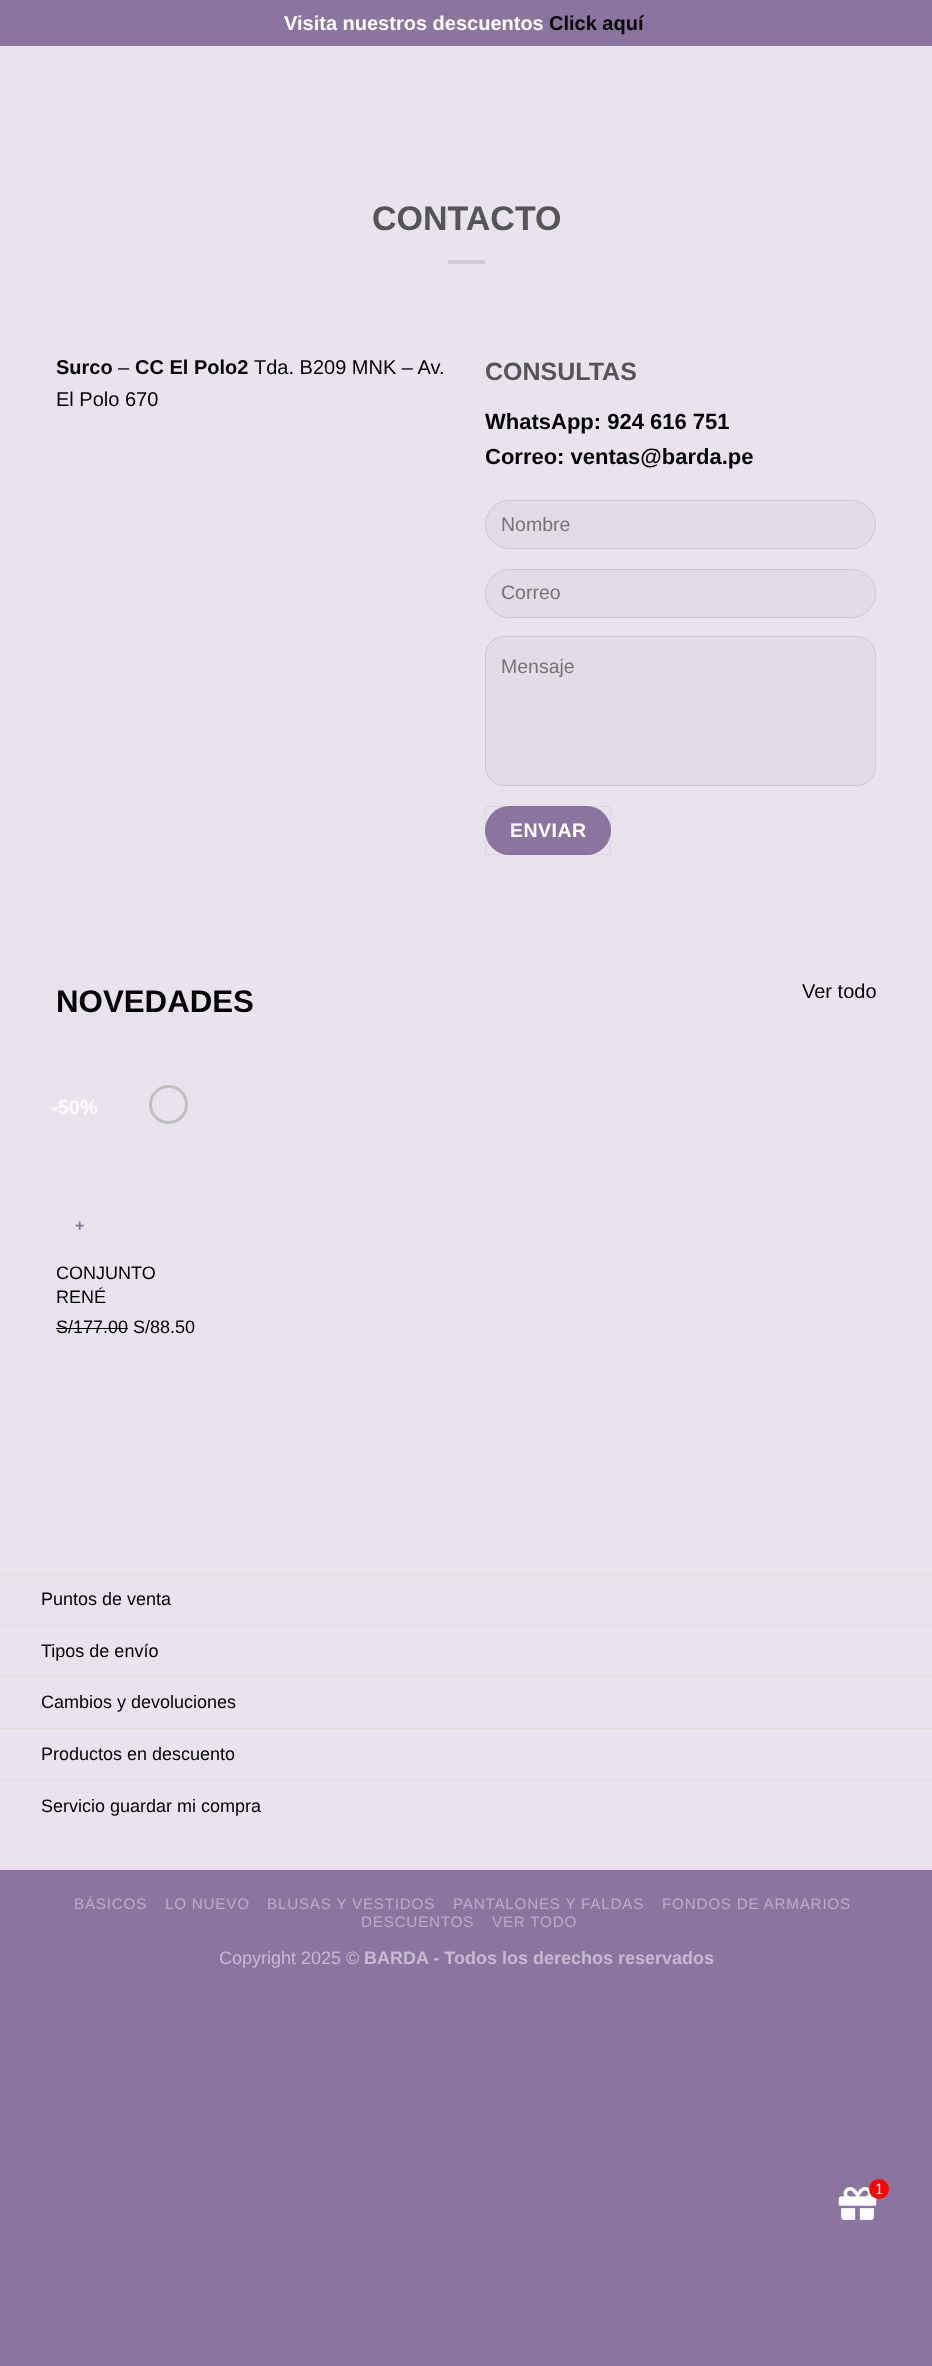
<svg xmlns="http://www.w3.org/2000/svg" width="932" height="2366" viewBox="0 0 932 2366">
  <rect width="100%" height="100%" fill="#8b759f"/>
  <path d="M0 46h932v1824H0z" fill="#e8e3ec"/>
  <path d="M448 260h37v4H448z" fill="#d1ccd4"/>
  <rect x="485" y="500" width="391" height="49" rx="24.5" fill="#e1dce5"/>
  <rect x="485.5" y="500.5" width="390" height="48" rx="24" fill="none" stroke="#00000017"/>
  <rect x="485" y="569" width="391" height="49" rx="24.5" fill="#e1dce5"/>
  <rect x="485.5" y="569.5" width="390" height="48" rx="24" fill="none" stroke="#00000017"/>
  <rect x="485.5" y="636.5" width="390" height="149" rx="18.5" fill="#e1dce5" stroke="#cdc8d0"/>
  <rect x="485" y="806" width="126" height="49" rx="24.5" fill="#8b759f"/>
  <path d="M485.5 806.5h125v48H485.5z" fill="none" stroke="#0000000d"/>
  <circle cx="168.5" cy="1104.5" r="18" fill="none" stroke="#c0c0c0" stroke-width="3"/>
  <path d="M56 1328h72v1H56z" fill="#000"/>
  <path d="M0 1574h932v1H0z" fill="#ddd"/>
  <path d="M0 1625h932v1H0z" fill="#ddd"/>
  <path d="M0 1676h932v1H0z" fill="#ddd"/>
  <path d="M0 1728h932v1H0z" fill="#ddd"/>
  <path d="M0 1780h932v1H0z" fill="#ddd"/>
  <image x="838" y="2187" width="39" height="33" href="img/1.png"/>
  <circle cx="879" cy="2189" r="10" fill="#f00"/>
  <text x="284" y="30" font-family="Liberation Sans" font-size="20" font-weight="bold" fill="#fff">Visita nuestros descuentos</text>
  <text x="549" y="30" font-family="Liberation Sans" font-size="20" font-weight="bold" fill="#000">Click aquí</text>
  <text x="372" y="230" font-family="Liberation Sans" font-size="34" font-weight="bold" fill="#555">CONTACTO</text>
  <text x="56" y="374" font-family="Liberation Sans" font-size="20" font-weight="bold" fill="#000">Surco</text>
  <text x="118" y="374" font-family="Liberation Sans" font-size="20" fill="#000">–</text>
  <text x="135" y="374" font-family="Liberation Sans" font-size="20" font-weight="bold" fill="#000">CC El Polo2</text>
  <g font-family="Liberation Sans" font-size="20" fill="#000">
    <text x="254" y="374">Tda. B209 MNK – Av.</text>
    <text x="56" y="406">El Polo 670</text>
  </g>
  <text x="485" y="380" font-family="Liberation Sans" font-size="25" font-weight="bold" fill="#555">CONSULTAS</text>
  <g font-family="Liberation Sans" font-size="22" font-weight="bold" fill="#000">
    <text x="485" y="429">WhatsApp: 924 616 751</text>
    <text x="485" y="464">Correo: ventas@barda.pe</text>
  </g>
  <g font-family="Liberation Sans" font-size="19.5" fill="#757575">
    <text x="501" y="531">Nombre</text>
    <text x="501" y="599">Correo</text>
    <text x="501" y="673">Mensaje</text>
  </g>
  <text x="510" y="837" font-family="Liberation Sans" font-size="19.5" font-weight="bold" letter-spacing="0.5" fill="#fff">ENVIAR</text>
  <text x="56" y="1012" font-family="Liberation Sans" font-size="31.25" font-weight="bold" fill="#000">NOVEDADES</text>
  <text x="802" y="998" font-family="Liberation Sans" font-size="20" fill="#000">Ver todo</text>
  <text x="51" y="1114" font-family="Liberation Sans" font-size="20" font-weight="bold" fill="#fff">-50%</text>
  <text x="75" y="1231" font-family="Liberation Sans" font-size="16" font-weight="bold" fill="#8b759f">+</text>
  <g font-family="Liberation Sans" font-size="18" fill="#000">
    <text x="56" y="1279">CONJUNTO</text>
    <text x="56" y="1303">RENÉ</text>
    <text x="56" y="1333">S/177.00 S/88.50</text>
    <text x="41" y="1605">Puntos de venta</text>
    <text x="41" y="1657">Tipos de envío</text>
    <text x="41" y="1708">Cambios y devoluciones</text>
    <text x="41" y="1760">Productos en descuento</text>
    <text x="41" y="1812">Servicio guardar mi compra</text>
  </g>
  <g font-family="Liberation Sans" font-size="15.25" letter-spacing="0.75" fill="#baacc6">
    <text x="74" y="1909">BÁSICOS</text>
    <text x="165" y="1909">LO NUEVO</text>
    <text x="267" y="1909">BLUSAS Y VESTIDOS</text>
    <text x="453" y="1909">PANTALONES Y FALDAS</text>
    <text x="662" y="1909">FONDOS DE ARMARIOS</text>
    <text x="361" y="1927">DESCUENTOS</text>
    <text x="492" y="1927">VER TODO</text>
  </g>
  <text x="219" y="1964" font-family="Liberation Sans" font-size="18" fill="#c5bacf">Copyright 2025 ©</text>
  <text x="364" y="1964" font-family="Liberation Sans" font-size="18" font-weight="bold" fill="#c5bacf">BARDA - Todos los derechos reservados</text>
  <text x="875" y="2194" font-family="Liberation Sans" font-size="15" fill="#fff">1</text>
</svg>
